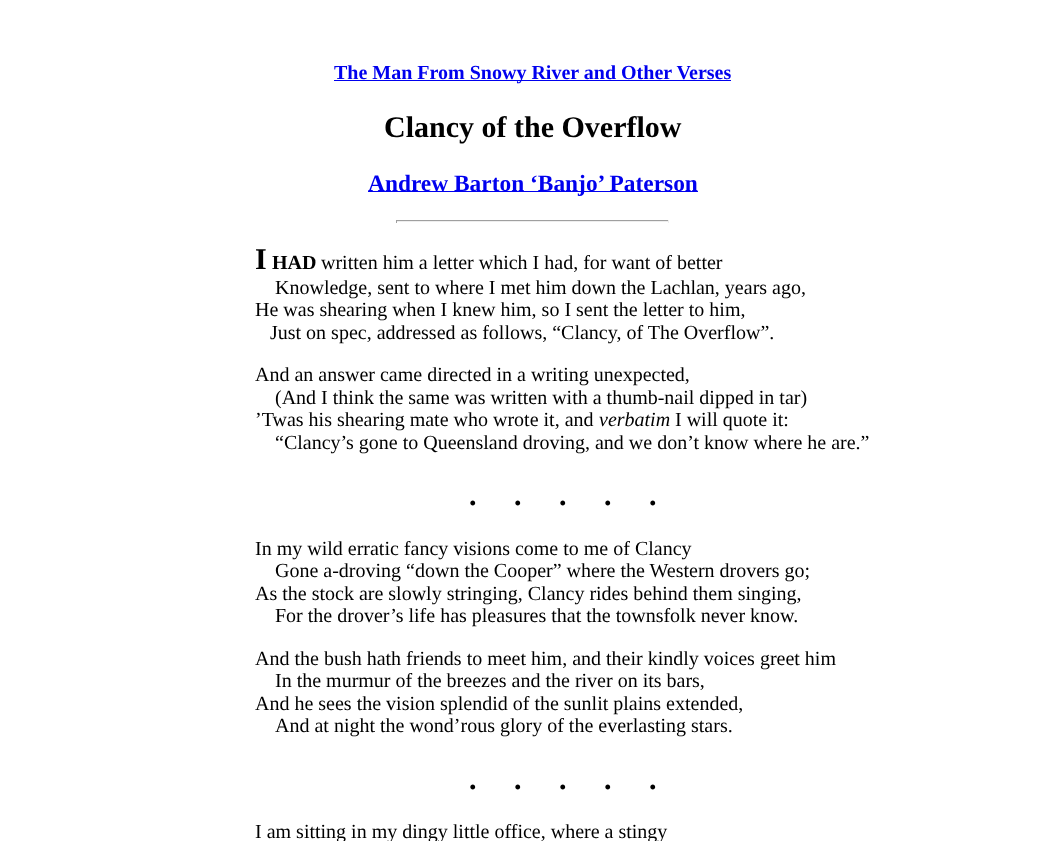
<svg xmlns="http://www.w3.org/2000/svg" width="1064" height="841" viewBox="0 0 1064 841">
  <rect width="100%" height="100%" fill="#fff"/>
  <path d="M334 80h397v1H334z" fill="#00e"/>
  <path d="M368 191h330v1H368z" fill="#00e"/>
  <path d="M396 220h273v1H396z" fill="#9f9f9f"/>
  <path d="M668 220h1v3H668z" fill="#eee"/>
  <path d="M396 221h273v1H396z" fill="#eee"/>
  <path d="M396 220h1v3H396z" fill="#9f9f9f"/>
  <text x="334" y="79" font-family="Liberation Serif" font-size="20" font-weight="bold" fill="#00e">The Man From Snowy River and Other Verses</text>
  <text x="384" y="137" font-family="Liberation Serif" font-size="30" font-weight="bold" fill="#000">Clancy of the Overflow</text>
  <text x="368" y="191" font-family="Liberation Serif" font-size="23.4" font-weight="bold" fill="#00e">Andrew Barton ‘Banjo’ Paterson</text>
  <text x="255" y="269" font-family="Liberation Serif" font-size="30" font-weight="bold" fill="#000">I</text>
  <text x="272" y="269" font-family="Liberation Serif" font-size="20" font-weight="bold" fill="#000">HAD</text>
  <g font-family="Liberation Serif" font-size="20" fill="#000">
    <text x="321" y="269">written him a letter which I had, for want of better</text>
    <text x="275" y="294">Knowledge, sent to where I met him down the Lachlan, years ago,</text>
    <text x="255" y="316">He was shearing when I knew him, so I sent the letter to him,</text>
    <text x="270" y="339">Just on spec, addressed as follows, “Clancy, of The Overflow”.</text>
    <text x="255" y="381">And an answer came directed in a writing unexpected,</text>
    <text x="275" y="404">(And I think the same was written with a thumb-nail dipped in tar)</text>
    <text x="255" y="426">’Twas his shearing mate who wrote it, and</text>
  </g>
  <text x="599" y="426" font-family="Liberation Serif" font-size="20" font-style="italic" fill="#000">verbatim</text>
  <g font-family="Liberation Serif" font-size="20" fill="#000">
    <text x="675" y="426">I will quote it:</text>
    <text x="275" y="449">“Clancy’s gone to Queensland droving, and we don’t know where he are.”</text>
  </g>
  <text x="469" y="505" font-family="Liberation Serif" font-size="30" font-weight="bold" fill="#000" xml:space="preserve">.     .     .     .     .</text>
  <g font-family="Liberation Serif" font-size="20" fill="#000">
    <text x="255" y="555">In my wild erratic fancy visions come to me of Clancy</text>
    <text x="275" y="577">Gone a-droving “down the Cooper” where the Western drovers go;</text>
    <text x="255" y="600">As the stock are slowly stringing, Clancy rides behind them singing,</text>
    <text x="275" y="622">For the drover’s life has pleasures that the townsfolk never know.</text>
    <text x="255" y="665">And the bush hath friends to meet him, and their kindly voices greet him</text>
    <text x="275" y="687">In the murmur of the breezes and the river on its bars,</text>
    <text x="255" y="710">And he sees the vision splendid of the sunlit plains extended,</text>
    <text x="275" y="732">And at night the wond’rous glory of the everlasting stars.</text>
  </g>
  <text x="469" y="789" font-family="Liberation Serif" font-size="30" font-weight="bold" fill="#000" xml:space="preserve">.     .     .     .     .</text>
  <text x="255" y="838" font-family="Liberation Serif" font-size="20" fill="#000">I am sitting in my dingy little office, where a stingy</text>
</svg>
